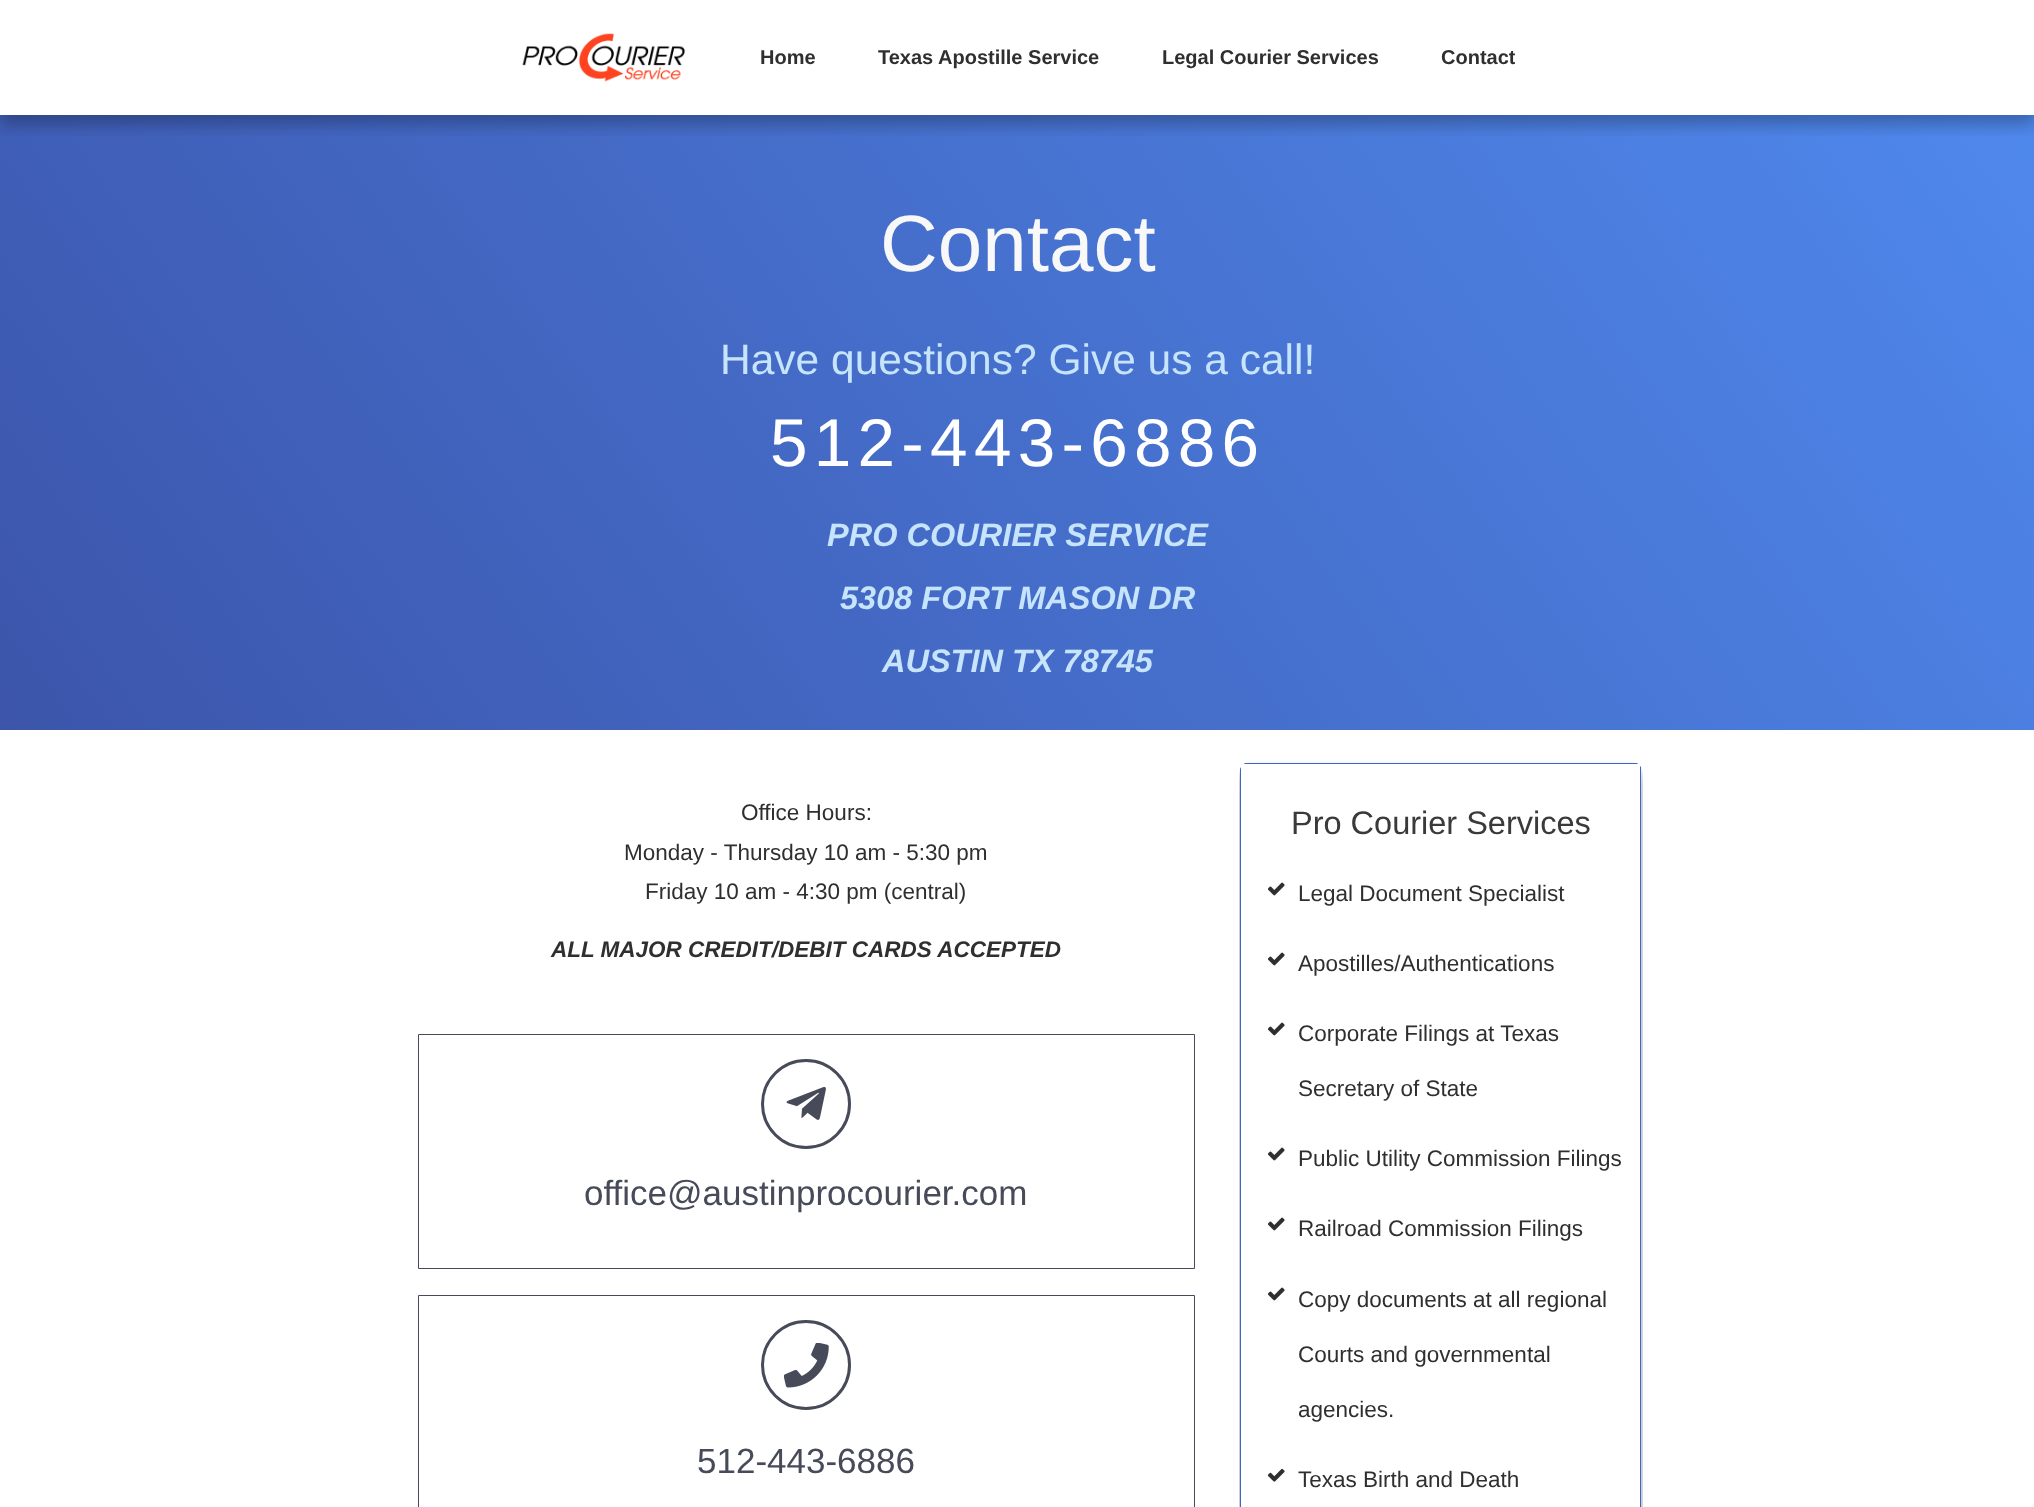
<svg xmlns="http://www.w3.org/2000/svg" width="2034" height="1507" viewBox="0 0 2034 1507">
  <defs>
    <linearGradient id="g1" gradientUnits="userSpaceOnUse" x1="205" y1="1013" x2="1830" y2="-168"><stop offset="0" stop-color="#3c55ab"/><stop offset="1" stop-color="#4f88ec"/></linearGradient>
    <clipPath id="clip1"><path d="M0 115h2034v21H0z"/></clipPath>
    <clipPath id="clip2"><rect x="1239" y="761" width="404" height="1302" rx="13"/></clipPath>
    <clipPath id="clip3"><path d="M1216 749H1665V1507H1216ZM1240 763H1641V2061H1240Z" clip-rule="evenodd"/></clipPath>
    <clipPath id="clip4"><path d="M1441 38h74v40H1441z"/></clipPath>
  </defs>
  <rect width="100%" height="100%" fill="#fff"/>
  <path d="M0 115h2034v615H0z" fill="url(#g1)"/>
  <g clip-path="url(#clip1)">
    <path d="M0 10h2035v115H0z" fill="#00000040" filter="blur(7.5px)"/>
  </g>
  <image x="522" y="33" width="163" height="49" href="img/1.png"/>
  <path d="M418.5 1034.5h776v234H418.5z" fill="none" stroke="#474a59"/>
  <circle cx="806" cy="1104" r="43.5" fill="none" stroke="#474a59" stroke-width="3"/>
  <image x="786" y="1086" width="40" height="34" href="img/2.png"/>
  <path d="M418.5 1295.5h776v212H418.5z" fill="none" stroke="#474a59"/>
  <circle cx="806" cy="1365" r="43.5" fill="none" stroke="#474a59" stroke-width="3"/>
  <image x="784" y="1343" width="45" height="45" href="img/3.png"/>
  <g clip-path="url(#clip2)">
    <g clip-path="url(#clip3)">
      <path d="M1240 773h401v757H1240z" fill="#00000066" filter="blur(7.5px)"/>
    </g>
  </g>
  <path d="M1240 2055V769L1241 767V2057ZM1637 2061H1245L1244 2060H1638ZM1641 767V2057L1640 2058V766ZM1637 763H1245L1244 764H1638Z" fill="#3e65c4" fill-rule="evenodd"/>
  <image x="1268" y="882" width="17" height="14" href="img/4.png"/>
  <image x="1268" y="952" width="17" height="14" href="img/4.png"/>
  <image x="1268" y="1022" width="17" height="14" href="img/4.png"/>
  <image x="1268" y="1147" width="17" height="14" href="img/4.png"/>
  <image x="1268" y="1217" width="17" height="14" href="img/4.png"/>
  <image x="1268" y="1287" width="17" height="14" href="img/4.png"/>
  <image x="1267" y="1468" width="18" height="14" href="img/5.png"/>
  <g font-family="Liberation Sans" font-size="20" font-weight="bold" fill="#2f2f2f">
    <text x="760" y="64">Home</text>
    <text x="878" y="64">Texas Apostille Service</text>
    <text x="1162" y="64">Legal Courier Services</text>
  </g>
  <g clip-path="url(#clip4)">
    <text x="1441" y="64" font-family="Liberation Sans" font-size="20" font-weight="bold" fill="#2f2f2f">Contact</text>
  </g>
  <text x="880" y="271" font-family="Liberation Sans" font-size="80" fill="#f8f8f8">Contact</text>
  <text x="720" y="374" font-family="Liberation Sans" font-size="42.5" fill="#c7e4fd">Have questions? Give us a call!</text>
  <text x="770" y="466" font-family="Liberation Sans" font-size="67.5" letter-spacing="6.25" fill="#fff">512-443-6886</text>
  <g font-family="Liberation Sans" font-size="32.5" font-weight="bold" font-style="italic" fill="#c7e4fd">
    <text x="827" y="546">PRO COURIER SERVICE</text>
    <text x="840" y="609">5308 FORT MASON DR</text>
    <text x="882" y="672">AUSTIN TX 78745</text>
  </g>
  <g font-family="Liberation Sans" font-size="22.5" fill="#2f2f2f">
    <text x="741" y="820">Office Hours:</text>
    <text x="624" y="860">Monday - Thursday 10 am - 5:30 pm</text>
    <text x="645" y="899">Friday 10 am - 4:30 pm (central)</text>
  </g>
  <text x="551" y="957" font-family="Liberation Sans" font-size="22.5" font-weight="bold" font-style="italic" fill="#2f2f2f">ALL MAJOR CREDIT/DEBIT CARDS ACCEPTED</text>
  <g font-family="Liberation Sans" font-size="35" fill="#474a59">
    <text x="584" y="1205">office@austinprocourier.com</text>
    <text x="697" y="1473">512-443-6886</text>
  </g>
  <text x="1291" y="834" font-family="Liberation Sans" font-size="32.5" fill="#3a3a3a">Pro Courier Services</text>
  <g font-family="Liberation Sans" font-size="22.5" fill="#2f2f2f">
    <text x="1298" y="901">Legal Document Specialist</text>
    <text x="1298" y="971">Apostilles/Authentications</text>
    <text x="1298" y="1041">Corporate Filings at Texas</text>
    <text x="1298" y="1096">Secretary of State</text>
    <text x="1298" y="1166">Public Utility Commission Filings</text>
    <text x="1298" y="1236">Railroad Commission Filings</text>
    <text x="1298" y="1307">Copy documents at all regional</text>
    <text x="1298" y="1362">Courts and governmental</text>
    <text x="1298" y="1417">agencies.</text>
    <text x="1298" y="1487">Texas Birth and Death</text>
  </g>
</svg>
